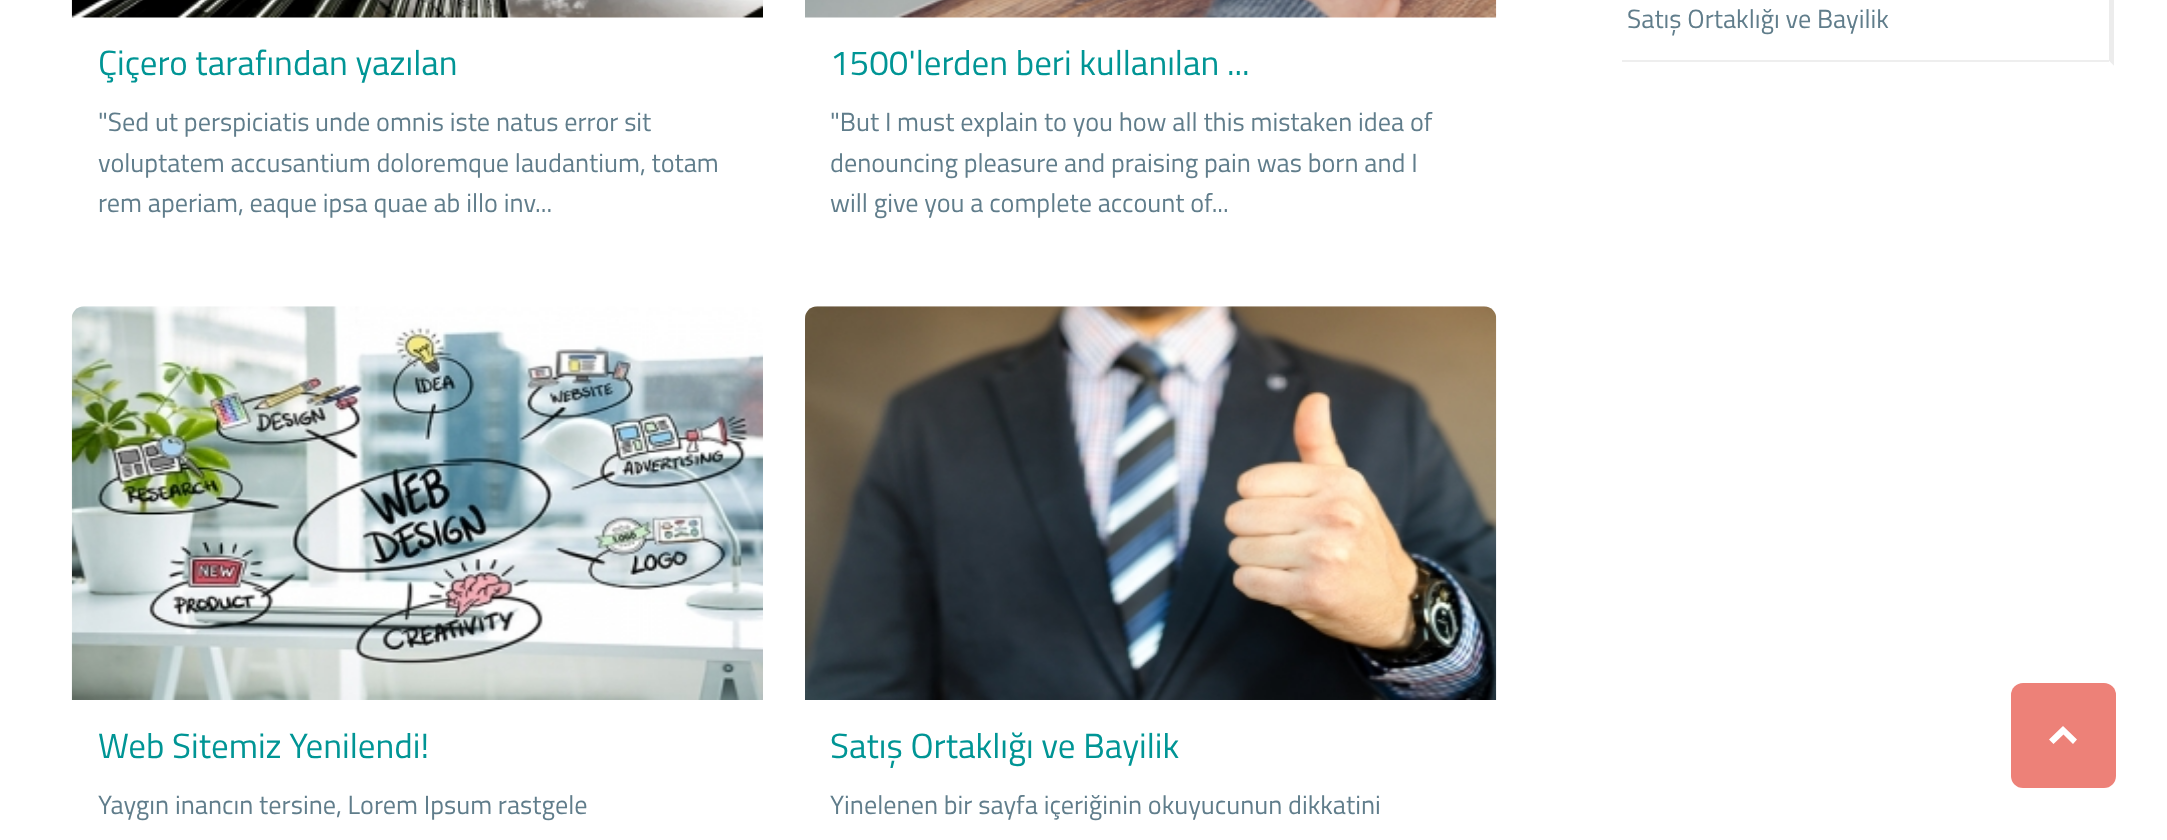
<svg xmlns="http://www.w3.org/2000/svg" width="2167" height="840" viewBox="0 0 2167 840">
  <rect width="100%" height="100%" fill="#fff"/>
  <path d="M2114-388V66L2109 61V-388Z" fill="#ececec"/>
  <path d="M2114 66H1615V61H2109Z" fill="#fff"/>
  <path d="M1622 60h487v2H1622z" fill="#eee"/>
  <image x="71" y="0" width="692" height="18" href="img/1.png"/>
  <image x="805" y="0" width="692" height="18" href="img/2.png"/>
  <image x="71" y="306" width="692" height="394" href="img/3.png"/>
  <image x="805" y="306" width="692" height="394" href="img/4.png"/>
  <rect x="2011" y="683" width="105" height="105" rx="12" fill="#e86256cc"/>
  <path d="M2063 726L2077 739.5L2073 744L2063.5 734.5L2053.5 744L2049 739.5Z" fill="#fff"/>
  <text x="1627" y="28" font-family="Titillium Web" font-size="26.25" fill="#607d8b">Satış Ortaklığı ve Bayilik</text>
  <text x="98" y="75" font-family="Titillium Web" font-size="35" fill="#009595">Çiçero tarafından yazılan</text>
  <g font-family="Titillium Web" font-size="26.25" fill="#607d8b">
    <text x="98" y="131">"Sed ut perspiciatis unde omnis iste natus error sit</text>
    <text x="98" y="172">voluptatem accusantium doloremque laudantium, totam</text>
    <text x="98" y="212">rem aperiam, eaque ipsa quae ab illo inv...</text>
  </g>
  <text x="830" y="75" font-family="Titillium Web" font-size="35" fill="#009595">1500'lerden beri kullanılan ...</text>
  <g font-family="Titillium Web" font-size="26.25" fill="#607d8b">
    <text x="830" y="131">"But I must explain to you how all this mistaken idea of</text>
    <text x="830" y="172">denouncing pleasure and praising pain was born and I</text>
    <text x="830" y="212">will give you a complete account of...</text>
  </g>
  <text x="98" y="758" font-family="Titillium Web" font-size="35" fill="#009595">Web Sitemiz Yenilendi!</text>
  <text x="98" y="814" font-family="Titillium Web" font-size="26.25" fill="#607d8b">Yaygın inancın tersine, Lorem Ipsum rastgele</text>
  <text x="830" y="758" font-family="Titillium Web" font-size="35" fill="#009595">Satış Ortaklığı ve Bayilik</text>
  <text x="830" y="814" font-family="Titillium Web" font-size="26.25" fill="#607d8b">Yinelenen bir sayfa içeriğinin okuyucunun dikkatini</text>
</svg>
